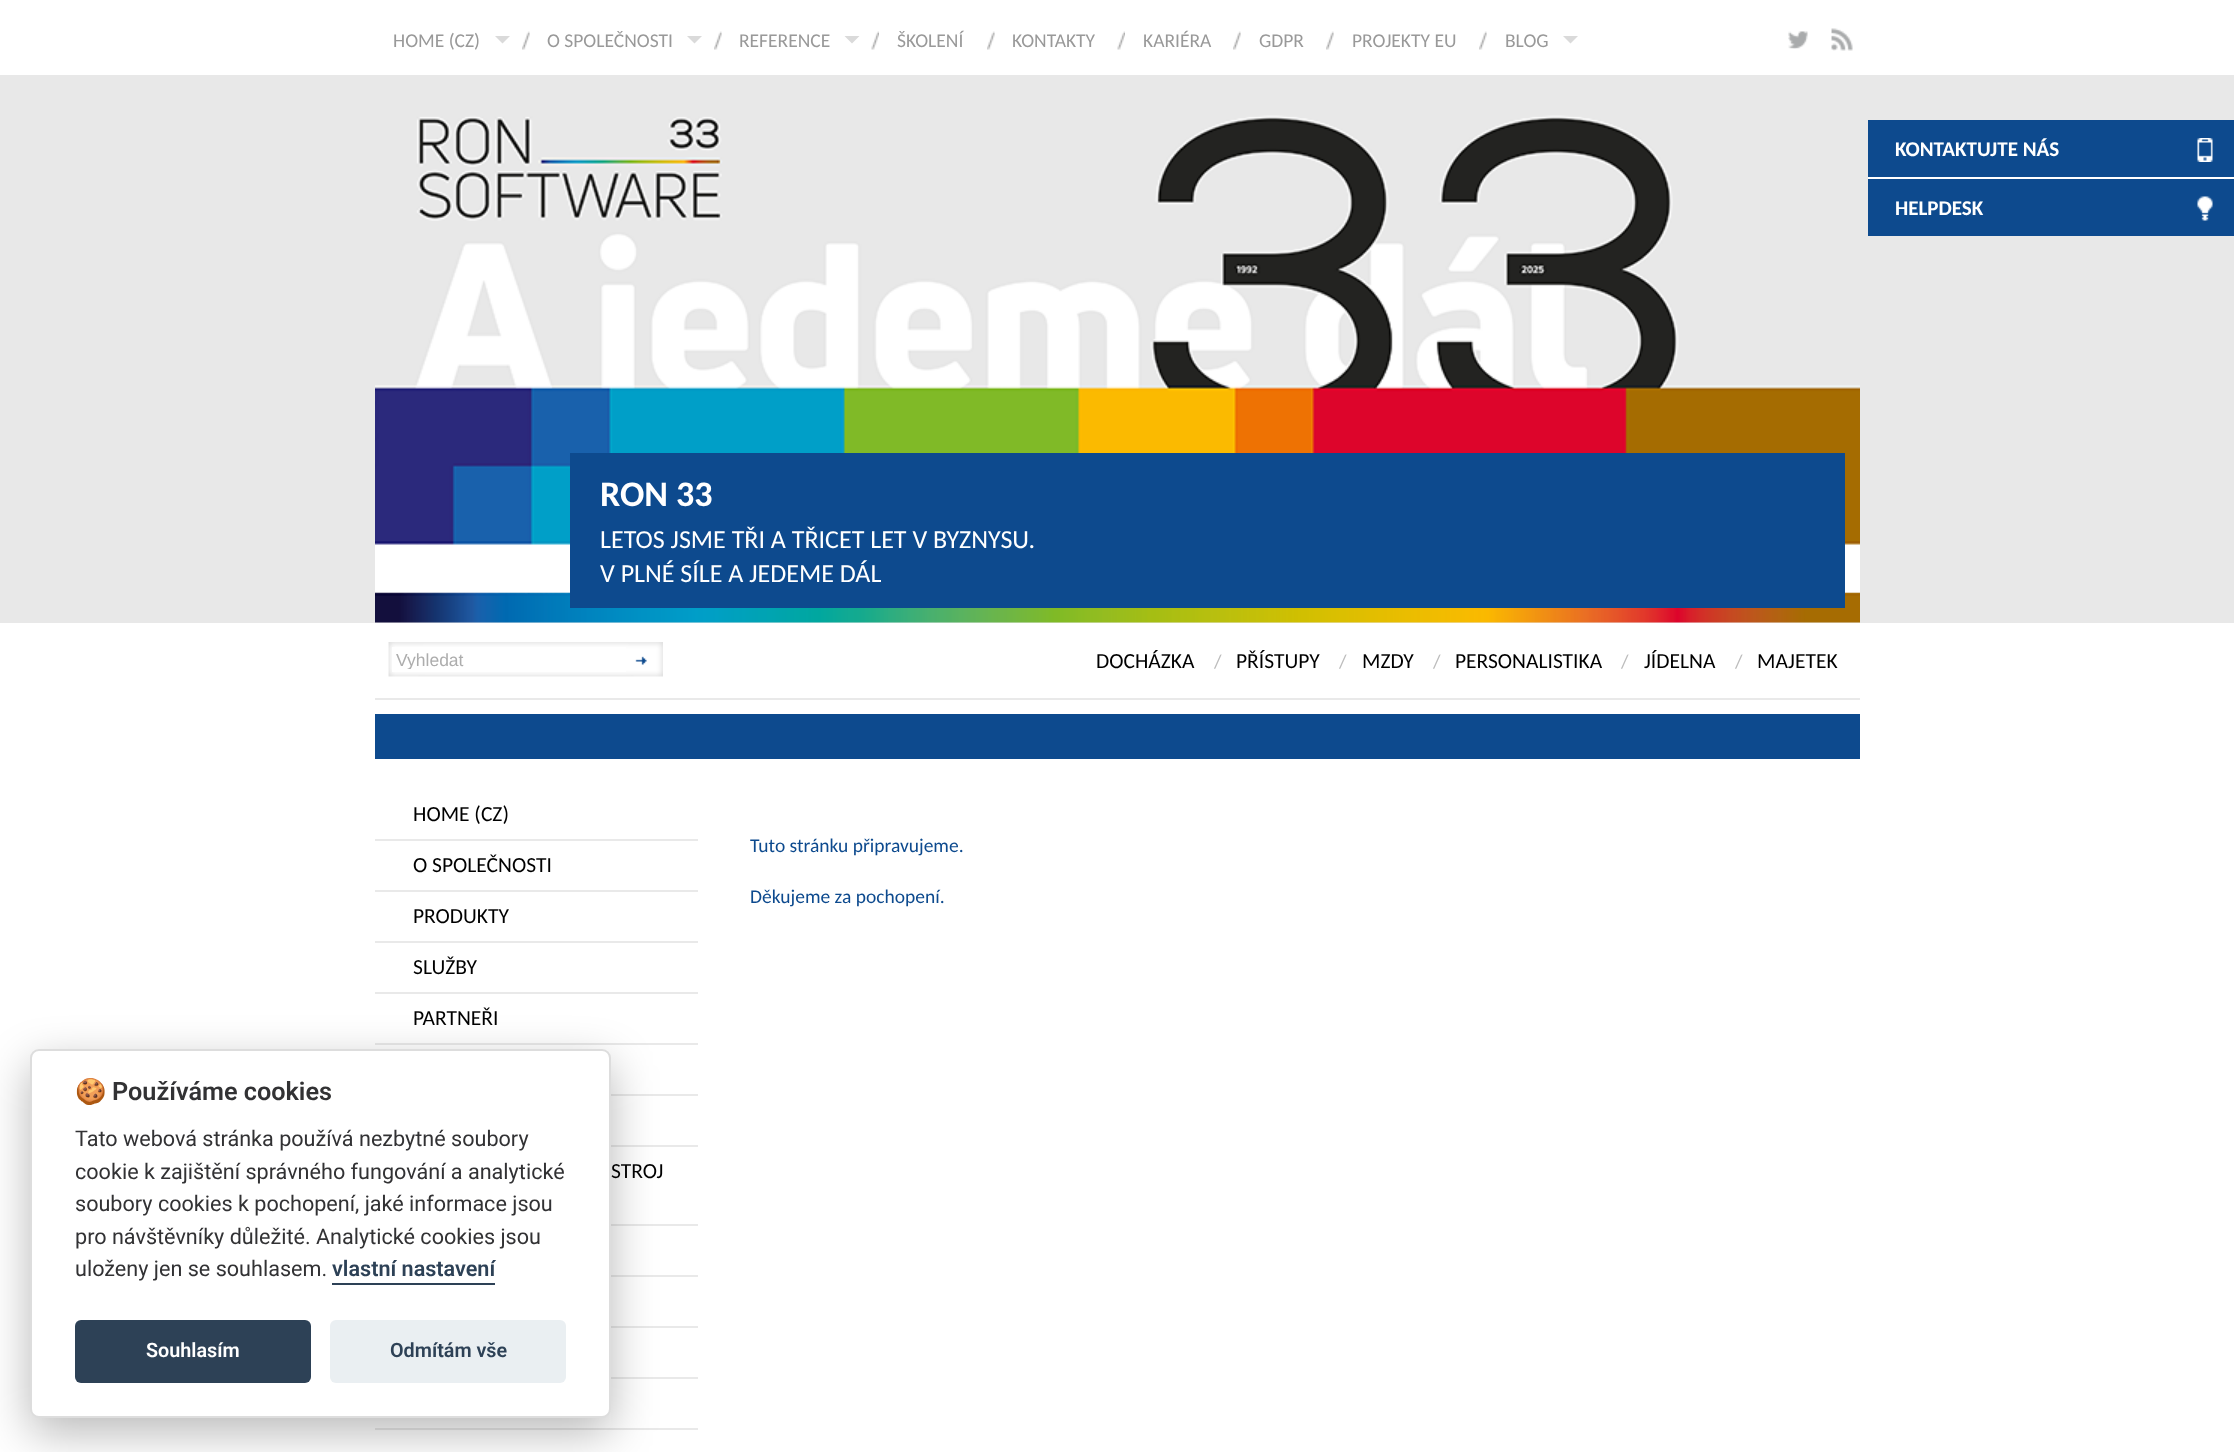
<svg xmlns="http://www.w3.org/2000/svg" width="2234" height="1452" viewBox="0 0 2234 1452">
  <defs>
    <clipPath id="clip1"><path d="M396 650h225v19H396z"/></clipPath>
  </defs>
  <rect width="100%" height="100%" fill="#fff"/>
  <image x="522" y="31" width="8" height="19" href="img/1.png"/>
  <path d="M495 36H510L502.5 43.5Z" fill="#dadada"/>
  <image x="714" y="31" width="8" height="19" href="img/1.png"/>
  <path d="M687 36H702L694.5 43.5Z" fill="#dadada"/>
  <image x="871" y="31" width="8" height="19" href="img/2.png"/>
  <path d="M844.5 36H859.5L852 43.5Z" fill="#dadada"/>
  <image x="987" y="31" width="8" height="19" href="img/3.png"/>
  <image x="1117" y="31" width="8" height="19" href="img/4.png"/>
  <image x="1233" y="31" width="8" height="19" href="img/1.png"/>
  <image x="1326" y="31" width="8" height="19" href="img/1.png"/>
  <image x="1479" y="31" width="8" height="19" href="img/1.png"/>
  <path d="M1563 36H1578L1570.5 43.5Z" fill="#dadada"/>
  <image x="1788" y="31" width="20" height="18" href="img/5.png"/>
  <image x="1831" y="28" width="22" height="23" href="img/6.png"/>
  <path d="M0 75h2234v548H0z" fill="#e8e8e8"/>
  <path d="M1868 177h366v2H1868z" fill="#fff"/>
  <path d="M1868 120h366v57H1868z" fill="#0d4a8e"/>
  <image x="2197" y="138" width="16" height="24" href="img/7.png"/>
  <path d="M1868 179h366v57H1868z" fill="#0d4a8e"/>
  <image x="2197" y="196" width="16" height="25" href="img/8.png"/>
  <image x="375" y="592" width="1485" height="31" href="img/9.png"/>
  <image x="375" y="115" width="1485" height="478" href="img/10.png"/>
  <path d="M570 453h1275v155H570z" fill="#0d4a8e"/>
  <path d="M375 698h1485v2H375z" fill="#e9e9e9"/>
  <image x="388" y="642" width="275" height="35" href="img/11.png"/>
  <path d="M392 647h234v25H392z" fill="#fff"/>
  <image x="635" y="656" width="12" height="9" href="img/12.png"/>
  <path d="M375 714h1485v45H375z" fill="#0d4a8e"/>
  <path d="M375 839h323v2H375z" fill="#e9e9e9"/>
  <path d="M375 890h323v2H375z" fill="#e9e9e9"/>
  <path d="M375 941h323v2H375z" fill="#e9e9e9"/>
  <path d="M375 992h323v2H375z" fill="#e9e9e9"/>
  <path d="M375 1043h323v2H375z" fill="#e9e9e9"/>
  <path d="M611 1094h87v2H611z" fill="#e9e9e9"/>
  <path d="M611 1145h87v2H611z" fill="#e9e9e9"/>
  <path d="M611 1224h87v2H611z" fill="#e9e9e9"/>
  <path d="M611 1275h87v2H611z" fill="#e9e9e9"/>
  <path d="M611 1326h87v2H611z" fill="#e9e9e9"/>
  <path d="M611 1377h87v2H611z" fill="#e9e9e9"/>
  <path d="M375 1428h323v2H375z" fill="#e9e9e9"/>
  <rect x="30" y="1064" width="581" height="369" rx="9" fill="#02020347" filter="blur(22.5px)"/>
  <rect x="31" y="1050" width="579" height="367" rx="8" fill="#fff" stroke="#ddd" stroke-width="2"/>
  <path d="M332 1283h163v2H332z" fill="#2d4156"/>
  <rect x="75" y="1320" width="236" height="63" rx="6" fill="#2d4156"/>
  <rect x="330" y="1320" width="236" height="63" rx="6" fill="#eaeff2"/>
  <g font-family="Carlito" font-size="19.5" fill="#999">
    <text x="393" y="47">HOME (CZ)</text>
    <text x="547" y="47">O SPOLEČNOSTI</text>
    <text x="739" y="47">REFERENCE</text>
    <text x="897" y="47">ŠKOLENÍ</text>
    <text x="1012" y="47">KONTAKTY</text>
    <text x="1143" y="47">KARIÉRA</text>
    <text x="1259" y="47">GDPR</text>
    <text x="1352" y="47">PROJEKTY EU</text>
    <text x="1505" y="47">BLOG</text>
  </g>
  <g font-family="Carlito" font-size="21" font-weight="bold" fill="#fff">
    <text x="1895" y="156">KONTAKTUJTE NÁS</text>
    <text x="1895" y="215">HELPDESK</text>
  </g>
  <text x="600" y="506" font-family="Carlito" font-size="36" font-weight="bold" fill="#fff">RON 33</text>
  <g font-family="Carlito" font-size="26" fill="#fff">
    <text x="600" y="548">LETOS JSME TŘI A TŘICET LET V BYZNYSU.</text>
    <text x="600" y="582">V PLNÉ SÍLE A JEDEME DÁL</text>
  </g>
  <g clip-path="url(#clip1)">
    <text x="396" y="666" font-family="Liberation Sans" font-size="17.5" fill="#adadad">Vyhledat</text>
  </g>
  <text x="1096" y="668" font-family="Carlito" font-size="21.5" fill="#000">DOCHÁZKA</text>
  <text x="1214" y="668" font-family="Carlito" font-size="19.5" fill="#bdbdbd">/</text>
  <text x="1236" y="668" font-family="Carlito" font-size="21.5" fill="#000">PŘÍSTUPY</text>
  <text x="1339" y="668" font-family="Carlito" font-size="19.5" fill="#bdbdbd">/</text>
  <text x="1362" y="668" font-family="Carlito" font-size="21.5" fill="#000">MZDY</text>
  <text x="1433" y="668" font-family="Carlito" font-size="19.5" fill="#bdbdbd">/</text>
  <text x="1455" y="668" font-family="Carlito" font-size="21.5" fill="#000">PERSONALISTIKA</text>
  <text x="1621" y="668" font-family="Carlito" font-size="19.5" fill="#bdbdbd">/</text>
  <text x="1644" y="668" font-family="Carlito" font-size="21.5" fill="#000">JÍDELNA</text>
  <text x="1735" y="668" font-family="Carlito" font-size="19.5" fill="#bdbdbd">/</text>
  <g font-family="Carlito" font-size="21.5" fill="#000">
    <text x="1757" y="668">MAJETEK</text>
    <text x="413" y="821">HOME (CZ)</text>
    <text x="413" y="872">O SPOLEČNOSTI</text>
    <text x="413" y="923">PRODUKTY</text>
    <text x="413" y="974">SLUŽBY</text>
    <text x="413" y="1025">PARTNEŘI</text>
    <text x="611" y="1178">STROJ</text>
  </g>
  <g font-family="Carlito" font-size="19.5" fill="#0d4a8e">
    <text x="750" y="852">Tuto stránku připravujeme.</text>
    <text x="750" y="903">Děkujeme za pochopení.</text>
  </g>
  <text x="75" y="1100" font-family="Noto Color Emoji" font-size="25.25" font-weight="bold" fill="#323234">🍪</text>
  <text x="112" y="1100" font-family="Roboto" font-size="25.25" font-weight="600" fill="#323234">Používáme cookies</text>
  <g font-family="Roboto" font-size="21.6" fill="#323234">
    <text x="75" y="1146">Tato webová stránka používá nezbytné soubory</text>
    <text x="75" y="1179">cookie k zajištění správného fungování a analytické</text>
    <text x="75" y="1211">soubory cookies k pochopení, jaké informace jsou</text>
    <text x="75" y="1244">pro návštěvníky důležité. Analytické cookies jsou</text>
    <text x="75" y="1276">uloženy jen se souhlasem.</text>
  </g>
  <text x="332" y="1276" font-family="Roboto" font-size="21.6" font-weight="600" fill="#2d4156">vlastní nastavení</text>
  <text x="146" y="1357" font-family="Roboto" font-size="19.75" font-weight="600" fill="#fff">Souhlasím</text>
  <text x="390" y="1357" font-family="Roboto" font-size="19.75" font-weight="600" fill="#2d4156">Odmítám vše</text>
</svg>
